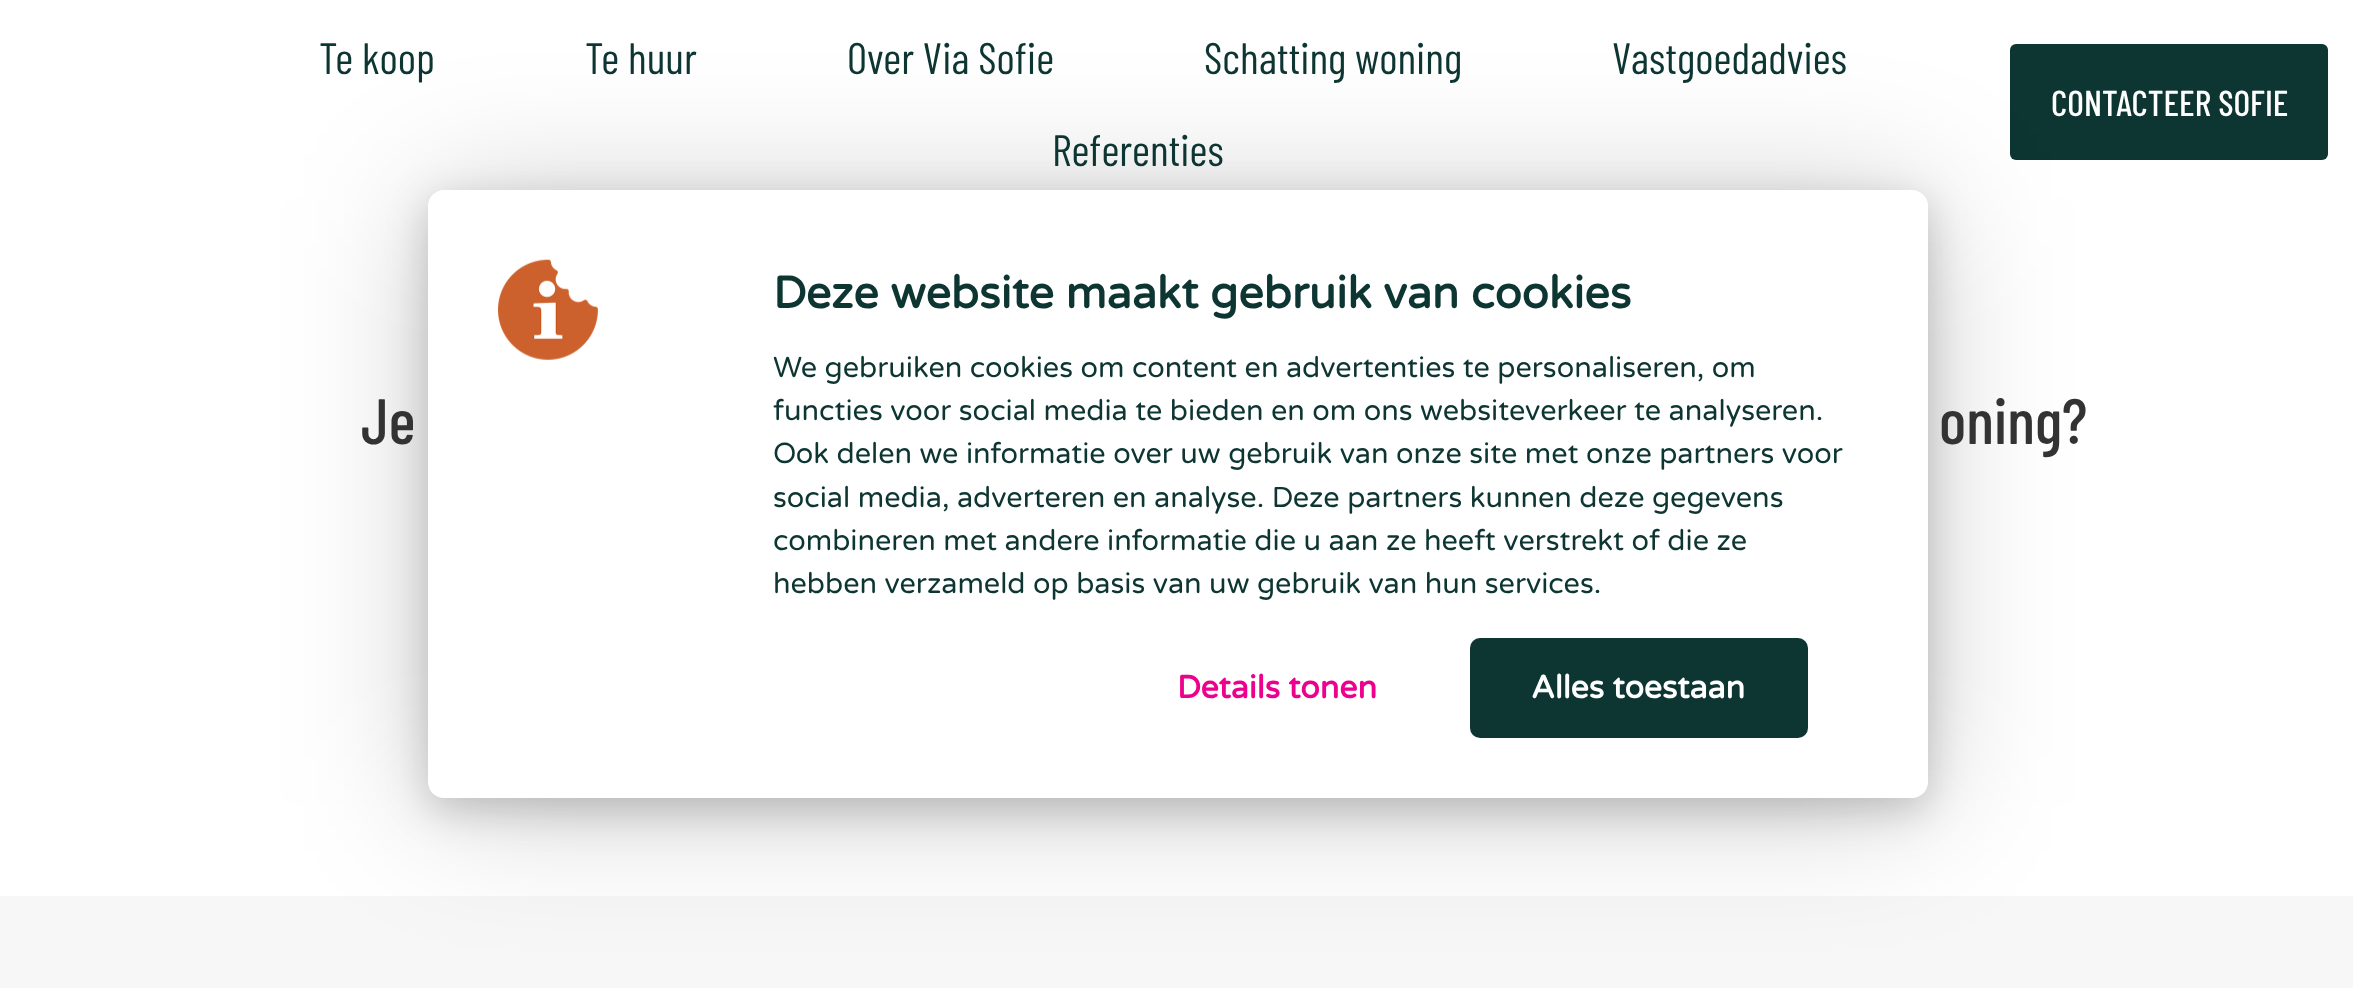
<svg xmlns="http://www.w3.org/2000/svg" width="2353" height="988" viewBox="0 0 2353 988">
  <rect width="100%" height="100%" fill="#fff"/>
  <rect x="2010" y="44" width="318" height="116" rx="6" fill="#0d3532"/>
  <rect x="428" y="202" width="1500" height="608" rx="16" fill="#00000030" filter="blur(20px)"/>
  <path d="M0 896h2353v92H0z" fill="#f7f7f7"/>
  <rect x="428" y="198" width="1500" height="608" rx="16" fill="#00000033" filter="blur(70px)"/>
  <rect x="428" y="190" width="1500" height="608" rx="16" fill="#fff"/>
  <image x="498" y="259" width="100" height="101" href="img/1.png"/>
  <rect x="1471" y="639" width="336" height="98" rx="9" fill="#0d3532" stroke="#0d3532" stroke-width="2"/>
  <g font-family="Barlow Condensed" font-size="44" fill="#0d3532">
    <text x="319" y="74">Te koop</text>
    <text x="585" y="74">Te huur</text>
    <text x="847" y="74">Over Via Sofie</text>
    <text x="1204" y="74">Schatting woning</text>
    <text x="1612" y="74">Vastgoedadvies</text>
    <text x="1052" y="166">Referenties</text>
  </g>
  <text x="2051" y="116" font-family="Barlow Condensed" font-size="36" font-weight="500" fill="#fff">CONTACTEER SOFIE</text>
  <text x="773" y="308" font-family="Varela Round" font-size="44.75" font-weight="bold" fill="#0d3532">Deze website maakt gebruik van cookies</text>
  <g font-family="Varela Round" font-size="28.8" fill="#0d3532">
    <text x="773" y="377">We gebruiken cookies om content en advertenties te personaliseren, om</text>
    <text x="773" y="420">functies voor social media te bieden en om ons websiteverkeer te analyseren.</text>
    <text x="773" y="463">Ook delen we informatie over uw gebruik van onze site met onze partners voor</text>
    <text x="773" y="507">social media, adverteren en analyse. Deze partners kunnen deze gegevens</text>
    <text x="773" y="550">combineren met andere informatie die u aan ze heeft verstrekt of die ze</text>
    <text x="773" y="593">hebben verzameld op basis van uw gebruik van hun services.</text>
  </g>
  <text x="1177" y="698" font-family="Varela Round" font-size="32" font-weight="bold" fill="#ec008c">Details tonen</text>
  <text x="1531" y="698" font-family="Varela Round" font-size="32" font-weight="bold" fill="#fff">Alles toestaan</text>
  <g font-family="Barlow Condensed" font-size="64" font-weight="500" fill="#333">
    <text x="361" y="444">Je</text>
    <text x="1939" y="444">oning?</text>
  </g>
</svg>
